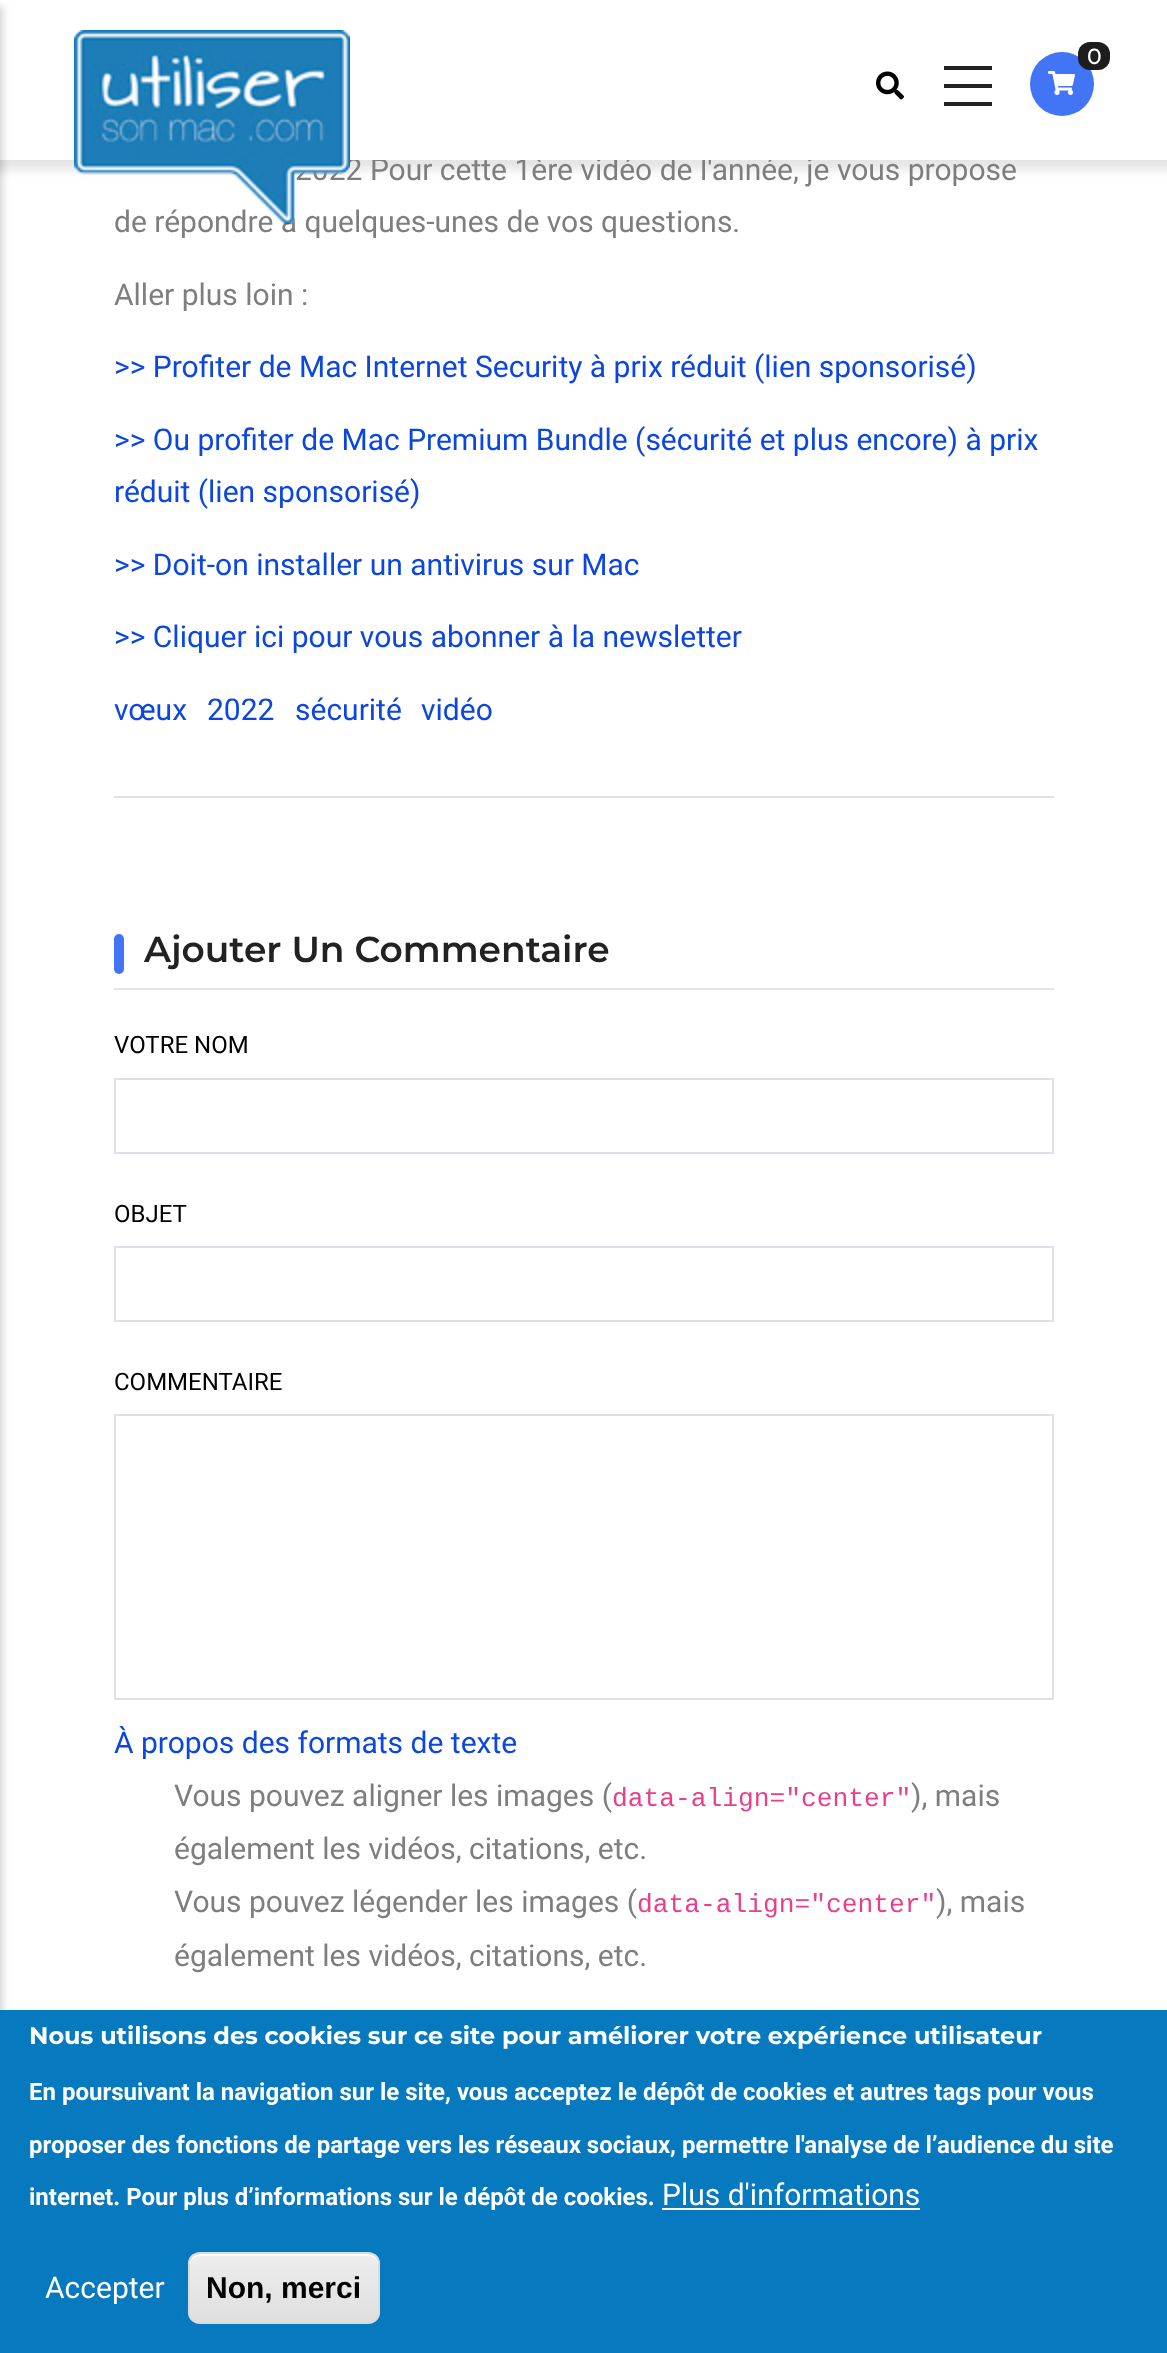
<svg xmlns="http://www.w3.org/2000/svg" width="1167" height="2353" viewBox="0 0 1167 2353">
  <defs>
    <clipPath id="clip1"><rect x="188" y="2252" width="192" height="72" rx="12"/></clipPath>
    <linearGradient id="g1" gradientUnits="userSpaceOnUse" x1="284" y1="2254" x2="284" y2="2322"><stop offset="0.05" stop-color="#ededed"/><stop offset="1" stop-color="#dfdfdf"/></linearGradient>
  </defs>
  <rect width="100%" height="100%" fill="#fff"/>
  <path d="M-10 -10h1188v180H-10z" fill="#0000001a" filter="blur(5px)"/>
  <path d="M114 796h940v2H114z" fill="#dee2e6"/>
  <path d="M114 988h940v2H114z" fill="#e6e6e6"/>
  <rect x="114" y="934" width="10" height="40" rx="5" fill="#4274f6"/>
  <path d="M115 1079h938v74H115z" fill="none" stroke="#dee2e6" stroke-width="2"/>
  <path d="M115 1247h938v74H115z" fill="none" stroke="#dee2e6" stroke-width="2"/>
  <path d="M115 1415h938v284H115z" fill="none" stroke="#dee2e6" stroke-width="2"/>
  <text x="295" y="180" font-family="Roboto" font-size="30" fill="#7e7e7e">2022 Pour cette 1ère vidéo de l'année, je vous propose</text>
  <path d="M0 0h1167v160H0z" fill="#fff"/>
  <path d="M-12 6h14v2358H-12z" fill="#00000033" filter="blur(4px)"/>
  <image x="876" y="71" width="28" height="29" href="img/3.png"/>
  <circle cx="1062" cy="84" r="32" fill="#4274f6"/>
  <rect x="1078" y="42" width="32" height="28" rx="12" fill="#1d1d1d"/>
  <text x="1087" y="64" font-family="Montserrat" font-size="22" font-weight="500" fill="#fff">0</text>
  <image x="1048" y="71" width="27" height="24" href="img/2.png"/>
  <path d="M944 102h48v4H944z" fill="#222"/>
  <path d="M944 84h48v4H944z" fill="#222"/>
  <path d="M944 66h48v4H944z" fill="#222"/>
  <text x="114" y="232" font-family="Roboto" font-size="30" fill="#7e7e7e">de répondre à quelques-unes de vos questions.</text>
  <image x="74" y="30" width="276" height="194" href="img/1.png"/>
  <text x="114" y="305" font-family="Roboto" font-size="30" fill="#7e7e7e">Aller plus loin :</text>
  <g font-family="Roboto" font-size="30" fill="#0b46e1">
    <text x="114" y="377">&gt;&gt; Profiter de Mac Internet Security à prix réduit (lien sponsorisé)</text>
    <text x="114" y="450">&gt;&gt; Ou profiter de Mac Premium Bundle (sécurité et plus encore) à prix</text>
    <text x="114" y="502">réduit (lien sponsorisé)</text>
    <text x="114" y="575">&gt;&gt; Doit-on installer un antivirus sur Mac</text>
    <text x="114" y="647">&gt;&gt; Cliquer ici pour vous abonner à la newsletter</text>
    <text x="114" y="720">vœux</text>
    <text x="207" y="720">2022</text>
    <text x="295" y="720">sécurité</text>
    <text x="421" y="720">vidéo</text>
  </g>
  <text x="144" y="962" font-family="Montserrat" font-size="36" font-weight="600" fill="#222">Ajouter Un Commentaire</text>
  <g font-family="Roboto" font-size="24" fill="#000">
    <text x="114" y="1053">VOTRE NOM</text>
    <text x="114" y="1222">OBJET</text>
    <text x="114" y="1390">COMMENTAIRE</text>
  </g>
  <text x="114" y="1753" font-family="Roboto" font-size="30" fill="#0b46e1">À propos des formats de texte</text>
  <text x="174" y="1806" font-family="Roboto" font-size="30" fill="#7e7e7e">Vous pouvez aligner les images (</text>
  <text x="612" y="1806" font-family="Liberation Mono" font-size="26.25" fill="#e83e8c">data-align="center"</text>
  <g font-family="Roboto" font-size="30" fill="#7e7e7e">
    <text x="911" y="1806">), mais</text>
    <text x="174" y="1859">également les vidéos, citations, etc.</text>
    <text x="174" y="1912">Vous pouvez légender les images (</text>
  </g>
  <text x="637" y="1912" font-family="Liberation Mono" font-size="26.25" fill="#e83e8c">data-align="center"</text>
  <g font-family="Roboto" font-size="30" fill="#7e7e7e">
    <text x="936" y="1912">), mais</text>
    <text x="174" y="1966">également les vidéos, citations, etc.</text>
  </g>
  <path d="M0 2010h1167v343H0z" fill="#0779bf"/>
  <text x="29" y="2044" font-family="Montserrat" font-size="24" font-weight="bold" fill="#fff">Nous utilisons des cookies sur ce site pour améliorer votre expérience utilisateur</text>
  <g font-family="Roboto" font-size="24" font-weight="bold" fill="#fff">
    <text x="29" y="2100">En poursuivant la navigation sur le site, vous acceptez le dépôt de cookies et autres tags pour vous</text>
    <text x="29" y="2153">proposer des fonctions de partage vers les réseaux sociaux, permettre l'analyse de l’audience du site</text>
    <text x="29" y="2205">internet. Pour plus d’informations sur le dépôt de cookies.</text>
  </g>
  <text x="662" y="2205" font-family="Roboto" font-size="30" fill="#fff">Plus d'informations</text>
  <path d="M662 2208h258v2H662z" fill="#fff"/>
  <text x="45" y="2298" font-family="Roboto" font-size="30" fill="#fff">Accepter</text>
  <g clip-path="url(#clip1)">
    <path d="M188 2254h192v68H188z" fill="url(#g1)"/>
  </g>
  <path d="M200 2256H368C374 2256 378 2260 378 2266V2264C378 2258 374 2254 368 2254H200C194 2254 190 2258 190 2264V2266C190 2260 194 2256 200 2256Z" fill="#fff"/>
  <rect x="189" y="2253" width="190" height="70" rx="11" fill="none" stroke="#dcdcdc" stroke-width="2"/>
  <text x="206" y="2298" font-family="Liberation Sans" font-size="30" font-weight="bold" fill="#000">Non, merci</text>
</svg>
